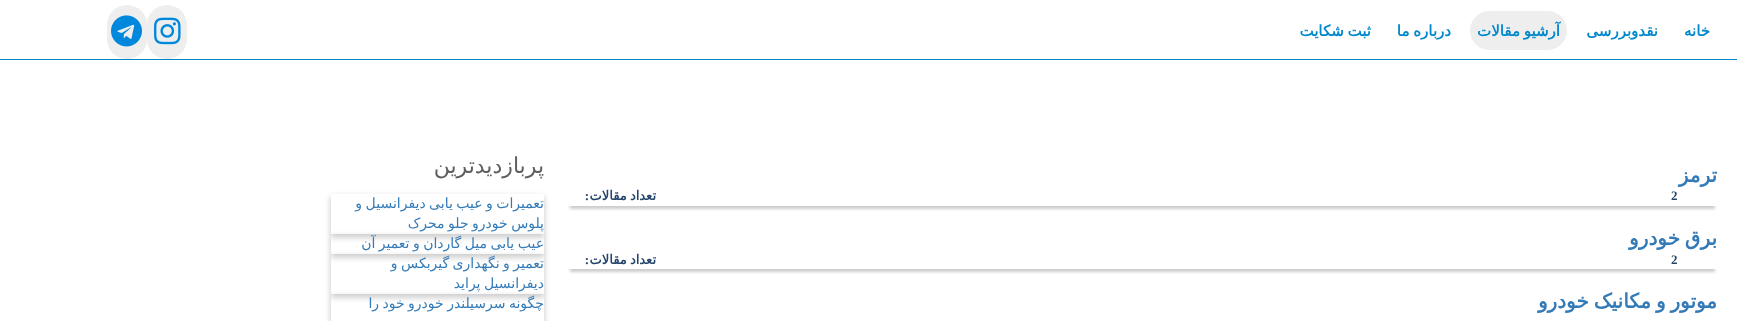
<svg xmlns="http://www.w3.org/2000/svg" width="1737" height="321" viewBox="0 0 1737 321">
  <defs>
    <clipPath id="clip1"><path d="M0 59h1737v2H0z"/></clipPath>
    <clipPath id="clip2"><path d="M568 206h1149v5H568z"/></clipPath>
    <clipPath id="clip3"><path d="M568 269h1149v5H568z"/></clipPath>
    <clipPath id="clip4"><path d="M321 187H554V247H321ZM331 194H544V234H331Z" clip-rule="evenodd"/></clipPath>
    <clipPath id="clip5"><path d="M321 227H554V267H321ZM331 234H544V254H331Z" clip-rule="evenodd"/></clipPath>
    <clipPath id="clip6"><path d="M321 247H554V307H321ZM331 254H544V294H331Z" clip-rule="evenodd"/></clipPath>
    <clipPath id="clip7"><path d="M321 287H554V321H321ZM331 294H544V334H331Z" clip-rule="evenodd"/></clipPath>
  </defs>
  <rect width="100%" height="100%" fill="#fff"/>
  <g clip-path="url(#clip1)">
    <path d="M0 1h1737v59H0z" fill="#08c" filter="blur(0.5px)"/>
  </g>
  <rect x="1470" y="11" width="97" height="39" rx="19.5" fill="#eee"/>
  <rect x="147" y="5" width="40" height="54" rx="20" fill="#eee"/>
  <image x="154" y="17" width="27" height="28" href="img/1.png"/>
  <rect x="107" y="5" width="40" height="54" rx="20" fill="#eee"/>
  <image x="111" y="15" width="31" height="32" href="img/2.png"/>
  <g clip-path="url(#clip2)">
    <path d="M570 170h1145v39H570z" fill="#00000033" filter="blur(1.5px)"/>
  </g>
  <g clip-path="url(#clip3)">
    <path d="M570 233h1145v39H570z" fill="#00000033" filter="blur(1.5px)"/>
  </g>
  <g clip-path="url(#clip4)">
    <path d="M331 197h213v40H331z" fill="#0000001f" filter="blur(3px)"/>
    <path d="M331 197h213v40H331z" fill="#8080803d" filter="blur(3px)"/>
  </g>
  <g clip-path="url(#clip5)">
    <path d="M331 237h213v20H331z" fill="#0000001f" filter="blur(3px)"/>
    <path d="M331 237h213v20H331z" fill="#8080803d" filter="blur(3px)"/>
  </g>
  <g clip-path="url(#clip6)">
    <path d="M331 257h213v40H331z" fill="#0000001f" filter="blur(3px)"/>
    <path d="M331 257h213v40H331z" fill="#8080803d" filter="blur(3px)"/>
  </g>
  <g clip-path="url(#clip7)">
    <path d="M331 297h213v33H331z" fill="#0000001f" filter="blur(3px)"/>
    <path d="M331 297h213v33H331z" fill="#8080803d" filter="blur(3px)"/>
  </g>
  <g font-family="DejaVu Sans" font-size="15" font-weight="bold" direction="rtl" fill="#08c">
    <text x="1710" y="36">خانه</text>
    <text x="1658" y="36">نقدوبررسی</text>
    <text x="1560" y="36" word-spacing="-1">آرشیو مقالات</text>
    <text x="1451" y="36" word-spacing="-1">درباره ما</text>
    <text x="1371" y="36" word-spacing="-1">ثبت شکایت</text>
  </g>
  <text x="1717" y="182" font-family="DejaVu Sans" font-size="20" font-weight="bold" direction="rtl" fill="#337ab7">ترمز</text>
  <text x="1671" y="200" font-family="Liberation Serif" font-size="13" font-weight="bold" fill="#234569">2</text>
  <text x="656" y="200" word-spacing="-1" font-family="DejaVu Sans" font-size="13" font-weight="bold" direction="rtl" fill="#234569">تعداد مقالات</text>
  <text x="589" y="200" font-family="Liberation Serif" font-size="13" font-weight="bold" direction="rtl" fill="#234569">:</text>
  <text x="1717" y="245" word-spacing="-1.5" font-family="DejaVu Sans" font-size="20" font-weight="bold" direction="rtl" fill="#337ab7">برق خودرو</text>
  <text x="1671" y="264" font-family="Liberation Serif" font-size="13" font-weight="bold" fill="#234569">2</text>
  <text x="656" y="264" word-spacing="-1" font-family="DejaVu Sans" font-size="13" font-weight="bold" direction="rtl" fill="#234569">تعداد مقالات</text>
  <text x="589" y="264" font-family="Liberation Serif" font-size="13" font-weight="bold" direction="rtl" fill="#234569">:</text>
  <text x="1717" y="308" word-spacing="-1.5" font-family="DejaVu Sans" font-size="20" font-weight="bold" direction="rtl" fill="#337ab7">موتور و مکانیک خودرو</text>
  <text x="544" y="173" font-family="DejaVu Sans" font-size="22" direction="rtl" fill="#5f5f5f">پربازدیدترین</text>
  <g font-family="DejaVu Sans" font-size="14" direction="rtl" fill="#337ab7">
    <text x="544" y="208" word-spacing="-1">تعمیرات و عیب یابی دیفرانسیل و</text>
    <text x="544" y="228" word-spacing="-1">پلوس خودرو جلو محرک</text>
    <text x="544" y="248" word-spacing="-1">عیب یابی میل گاردان و تعمیر آن</text>
    <text x="544" y="268" word-spacing="-1">تعمیر و نگهداری گیربکس و</text>
    <text x="544" y="288" word-spacing="-1">دیفرانسیل پراید</text>
    <text x="544" y="308" word-spacing="-1">چگونه سرسیلندر خودرو خود را</text>
  </g>
</svg>
